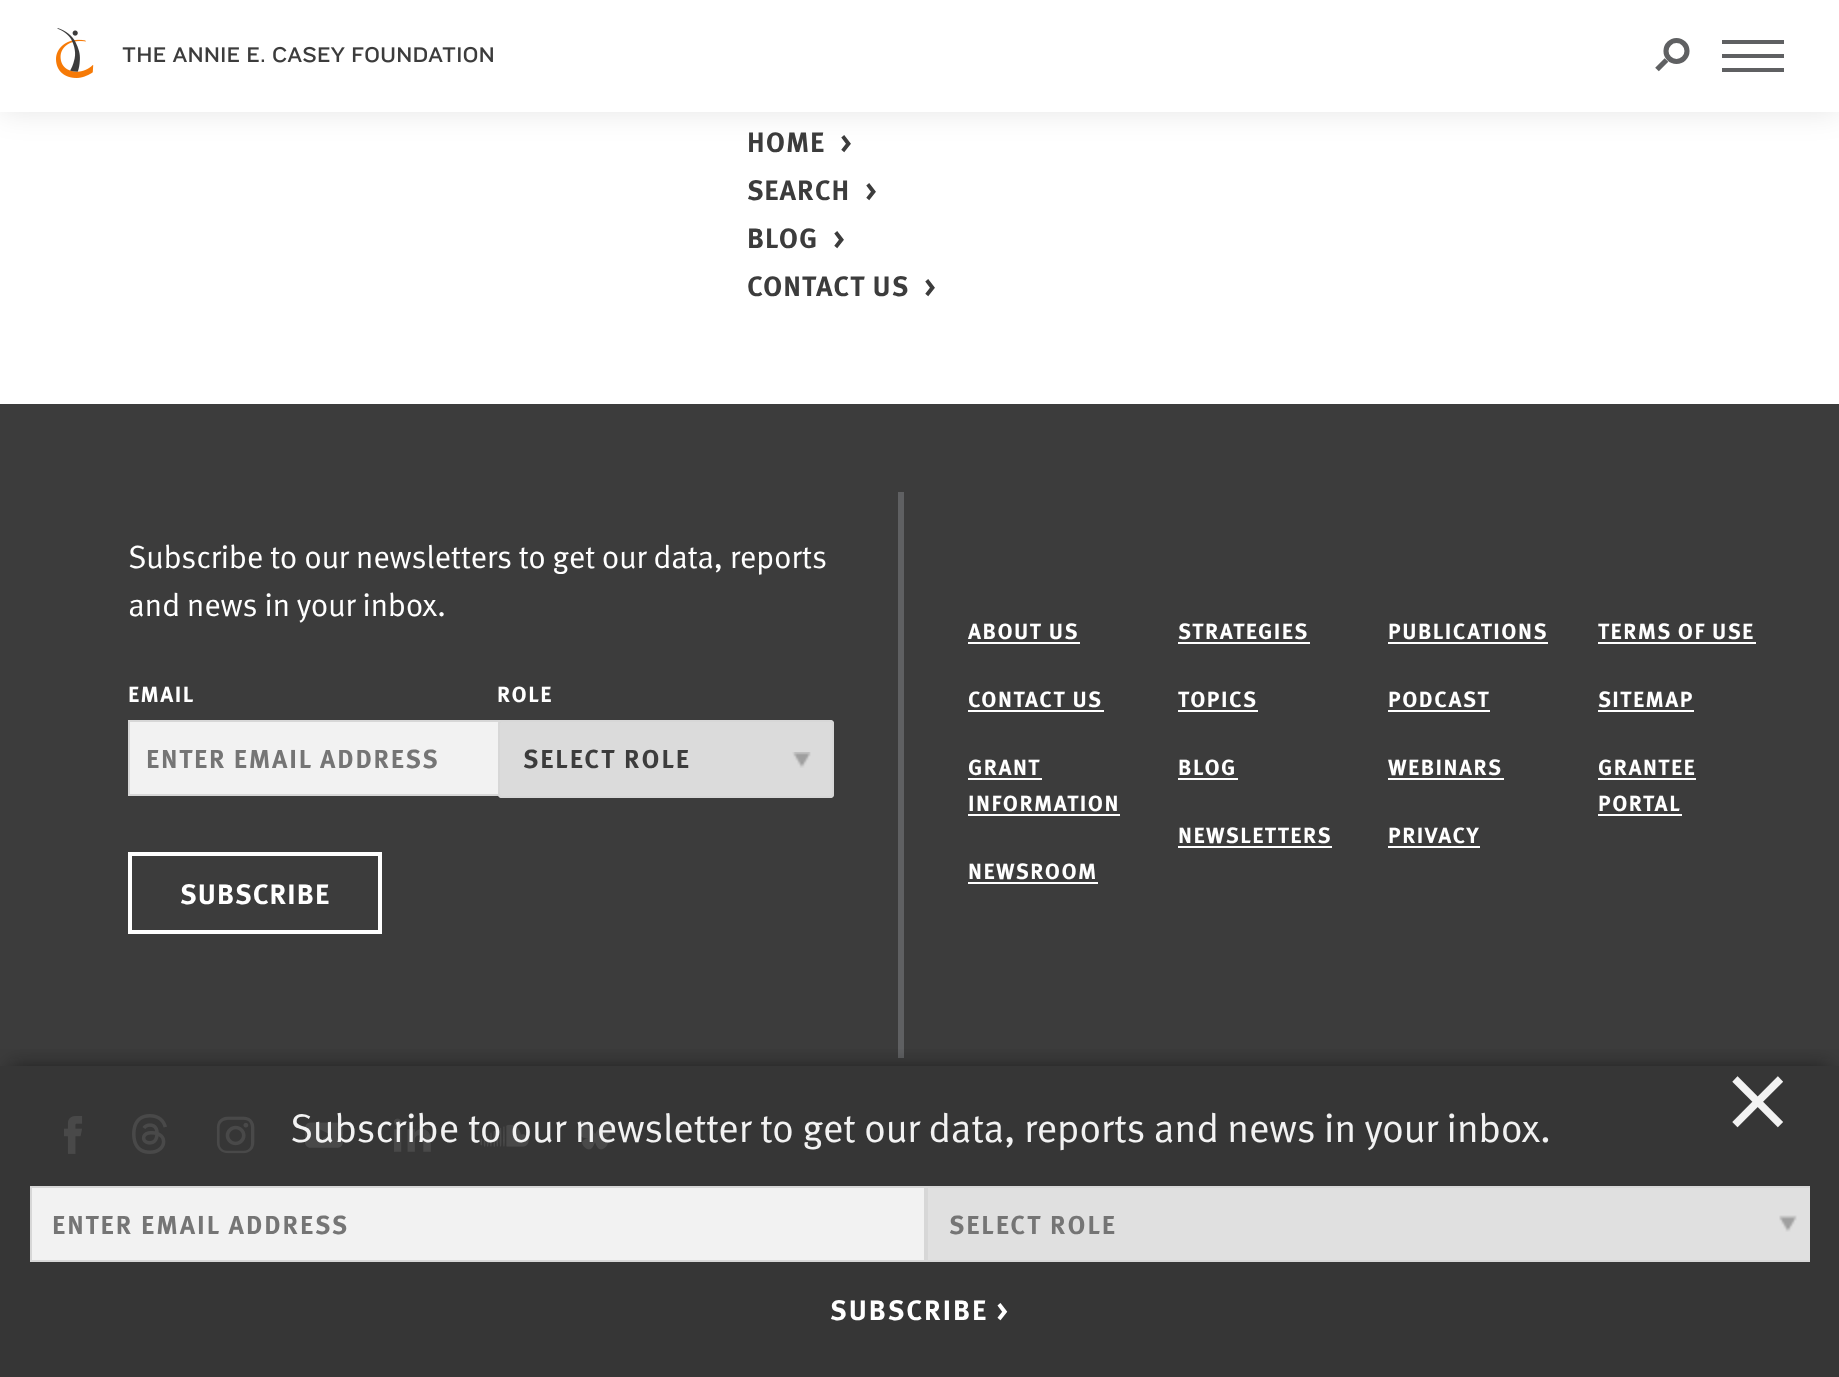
<svg xmlns="http://www.w3.org/2000/svg" width="1839" height="1377" viewBox="0 0 1839 1377">
  <defs>
    <clipPath id="clip1"><path d="M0 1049h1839v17H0z"/></clipPath>
    <clipPath id="clip2"><path d="M30 1176h1780v172H30z"/></clipPath>
  </defs>
  <rect width="100%" height="100%" fill="#fff"/>
  <path d="M0 0h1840v112H0z" fill="#0000001a" filter="blur(15px)"/>
  <path d="M0 0h1839v112H0z" fill="#fff"/>
  <image x="56" y="28" width="437" height="50" href="img/1.png"/>
  <circle cx="1676.5" cy="51" r="10.5" fill="none" stroke="#5f6062" stroke-width="5.1"/>
  <path d="M1657 69.5L1666.5 60" fill="none" stroke="#5f6062" stroke-width="5.1"/>
  <path d="M1722 40h62v4H1722z" fill="#5f6062"/>
  <path d="M1722 54h62v4H1722z" fill="#5f6062"/>
  <path d="M1722 68h62v4H1722z" fill="#5f6062"/>
  <path d="M0 404h1839v662H0z" fill="#3c3c3c"/>
  <path d="M0 1066h1839v311H0z" fill="#363636"/>
  <path d="M898 492h6v566H898z" fill="#5f6062"/>
  <path d="M130 722h369v72H130z" fill="#f2f2f2"/>
  <path d="M129 721h398v74H129z" fill="none" stroke="#d7d7d7" stroke-width="2"/>
  <rect x="498" y="720" width="336" height="78" rx="4" fill="#dbdbdb"/>
  <image x="792" y="752" width="19" height="16" href="img/2.png"/>
  <rect x="499" y="721" width="334" height="76" rx="3" fill="none" stroke="#d7d7d7" stroke-width="2"/>
  <path d="M130 854h250v78H130z" fill="none" stroke="#fff" stroke-width="4"/>
  <path d="M968 642h112v2H968z" fill="#fff"/>
  <path d="M1178 642h132v2H1178z" fill="#fff"/>
  <path d="M1388 642h160v2H1388z" fill="#fff"/>
  <path d="M1598 642h158v2H1598z" fill="#fff"/>
  <path d="M968 710h136v2H968z" fill="#fff"/>
  <path d="M1178 710h80v2H1178z" fill="#fff"/>
  <path d="M1388 710h102v2H1388z" fill="#fff"/>
  <path d="M1598 710h96v2H1598z" fill="#fff"/>
  <path d="M968 778h74v2H968z" fill="#fff"/>
  <path d="M968 814h152v2H968z" fill="#fff"/>
  <path d="M1178 778h60v2H1178z" fill="#fff"/>
  <path d="M1388 778h116v2H1388z" fill="#fff"/>
  <path d="M1598 778h98v2H1598z" fill="#fff"/>
  <path d="M1598 814h84v2H1598z" fill="#fff"/>
  <path d="M1178 846h154v2H1178z" fill="#fff"/>
  <path d="M1388 846h92v2H1388z" fill="#fff"/>
  <path d="M968 882h130v2H968z" fill="#fff"/>
  <image x="64" y="1116" width="19" height="38" href="img/3.png"/>
  <image x="132" y="1114" width="35" height="40" href="img/4.png"/>
  <image x="216" y="1116" width="39" height="38" href="img/5.png"/>
  <image x="305" y="1122" width="38" height="26" href="img/6.png"/>
  <image x="394" y="1118" width="37" height="34" href="img/7.png"/>
  <image x="480" y="1124" width="49" height="23" href="img/8.png"/>
  <image x="578" y="1120" width="34" height="30" href="img/9.png"/>
  <g clip-path="url(#clip1)">
    <path d="M10 1066h1820v292H10z" fill="#05050580" filter="blur(10px)"/>
  </g>
  <path d="M31 1187h894v74H31z" fill="#f2f2f2" stroke="#d7d7d7" stroke-width="2"/>
  <path d="M928 1188h882v72H928z" fill="#e0e0e0"/>
  <image x="1779" y="1215" width="18" height="17" href="img/10.png"/>
  <g clip-path="url(#clip2)">
    <path d="M927 1187h892v74H927z" fill="none" stroke="#d7d7d7" stroke-width="2"/>
  </g>
  <g font-family="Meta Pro" font-size="28" font-weight="bold" letter-spacing="1" fill="#3c3c3c">
    <text x="747" y="152">HOME</text>
    <text x="840" y="152">&gt;</text>
    <text x="747" y="200">SEARCH</text>
    <text x="865" y="200">&gt;</text>
    <text x="747" y="248">BLOG</text>
    <text x="833" y="248">&gt;</text>
    <text x="747" y="296">CONTACT US</text>
    <text x="924" y="296">&gt;</text>
  </g>
  <g font-family="Meta Pro" font-size="32" letter-spacing="-0.32" fill="#fff">
    <text x="128" y="568">Subscribe to our newsletters to get our data, reports</text>
    <text x="128" y="616">and news in your inbox.</text>
  </g>
  <text x="128" y="702" font-family="Meta Pro" font-size="22" font-weight="bold" letter-spacing="1.5" fill="#fff">EMAIL</text>
  <text x="146" y="768" font-family="Meta Pro" font-size="26" font-weight="bold" letter-spacing="1.8" fill="#757575">ENTER EMAIL ADDRESS</text>
  <text x="497" y="702" font-family="Meta Pro" font-size="22" font-weight="bold" letter-spacing="1.5" fill="#fff">ROLE</text>
  <text x="523" y="768" font-family="Meta Pro" font-size="26" font-weight="bold" letter-spacing="2" fill="#3c3c3c">SELECT ROLE</text>
  <text x="180" y="904" font-family="Meta Pro" font-size="28" font-weight="bold" letter-spacing="1.1" fill="#fff">SUBSCRIBE</text>
  <g font-family="Meta Pro" font-size="22" font-weight="bold" letter-spacing="1.5" fill="#fff">
    <text x="968" y="639">ABOUT US</text>
    <text x="1178" y="639">STRATEGIES</text>
    <text x="1388" y="639">PUBLICATIONS</text>
    <text x="1598" y="639">TERMS OF USE</text>
    <text x="968" y="707">CONTACT US</text>
    <text x="1178" y="707">TOPICS</text>
    <text x="1388" y="707">PODCAST</text>
    <text x="1598" y="707">SITEMAP</text>
    <text x="968" y="775">GRANT</text>
    <text x="968" y="811">INFORMATION</text>
    <text x="1178" y="775">BLOG</text>
    <text x="1388" y="775">WEBINARS</text>
    <text x="1598" y="775">GRANTEE</text>
    <text x="1598" y="811">PORTAL</text>
    <text x="1178" y="843">NEWSLETTERS</text>
    <text x="1388" y="843">PRIVACY</text>
    <text x="968" y="879">NEWSROOM</text>
  </g>
  <text x="290" y="1142" font-family="Meta Pro" font-size="40" letter-spacing="-0.4" fill="#f2f2f2">Subscribe to our newsletter to get our data, reports and news in your inbox.</text>
  <text x="1720" y="1130" font-family="DejaVu Sans" font-size="90" fill="#f2f2f2">⨯</text>
  <g font-family="Meta Pro" font-size="26" font-weight="bold" letter-spacing="2" fill="#757575">
    <text x="52" y="1234">ENTER EMAIL ADDRESS</text>
    <text x="949" y="1234">SELECT ROLE</text>
  </g>
  <text x="830" y="1320" font-family="Meta Pro" font-size="28" font-weight="bold" letter-spacing="2" fill="#fff">SUBSCRIBE &gt;</text>
</svg>
